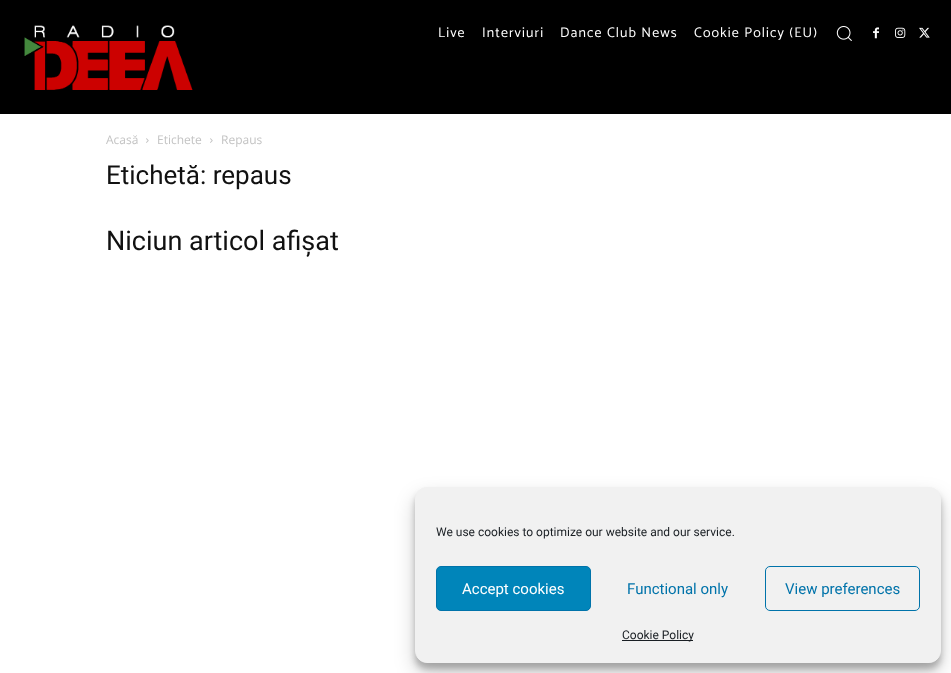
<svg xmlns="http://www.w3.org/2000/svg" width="951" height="673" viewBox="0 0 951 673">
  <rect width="100%" height="100%" fill="#fff"/>
  <path d="M0 0h951v114H0z" fill="#000"/>
  <image x="24" y="25" width="169" height="65" href="img/1.png"/>
  <image x="836" y="26" width="16" height="15" href="img/2.png"/>
  <image x="873" y="27" width="6" height="12" href="img/3.png"/>
  <image x="895" y="27" width="11" height="11" href="img/4.png"/>
  <image x="919" y="27" width="11" height="11" href="img/5.png"/>
  <image x="146" y="138" width="3" height="5" href="img/6.png"/>
  <image x="210" y="138" width="3" height="5" href="img/6.png"/>
  <rect x="415" y="493" width="526" height="176" rx="12" fill="#0000003b" filter="blur(3px)"/>
  <rect x="415" y="497" width="526" height="176" rx="12" fill="#00000030" filter="blur(10px)"/>
  <rect x="415.5" y="487.5" width="525" height="175" rx="11.5" fill="#f1f1f1" stroke="#f1f1f1"/>
  <rect x="436.5" y="566.5" width="154" height="44" rx="4.5" fill="#0085ba" stroke="#0073aa"/>
  <rect x="765.5" y="566.5" width="154" height="44" rx="4.5" fill="none" stroke="#0073aa"/>
  <path d="M622 640h71v1H622z" fill="#191e23"/>
  <g font-family="Catamaran" font-size="14" letter-spacing="1.1" fill="#fff">
    <text x="438" y="37">Live</text>
    <text x="482" y="37">Interviuri</text>
    <text x="560" y="37">Dance Club News</text>
    <text x="694" y="37">Cookie Policy (EU)</text>
  </g>
  <g font-family="Open Sans" font-size="12" fill="#c3c3c3">
    <text x="106" y="144">Acasă</text>
    <text x="157" y="144">Etichete</text>
    <text x="221" y="144">Repaus</text>
  </g>
  <text x="106" y="184" font-family="Roboto" font-size="26" fill="#111">Etichetă: repaus</text>
  <text x="106" y="250" font-family="Roboto" font-size="27" fill="#111">Niciun articol afișat</text>
  <text x="436" y="536" font-family="Roboto" font-size="12" fill="#191e23">We use cookies to optimize our website and our service.</text>
  <text x="462" y="594" font-family="Roboto" font-size="15" fill="#fff">Accept cookies</text>
  <g font-family="Roboto" font-size="15" fill="#0073aa">
    <text x="627" y="594">Functional only</text>
    <text x="785" y="594">View preferences</text>
  </g>
  <text x="622" y="639" font-family="Roboto" font-size="12" fill="#191e23">Cookie Policy</text>
</svg>
